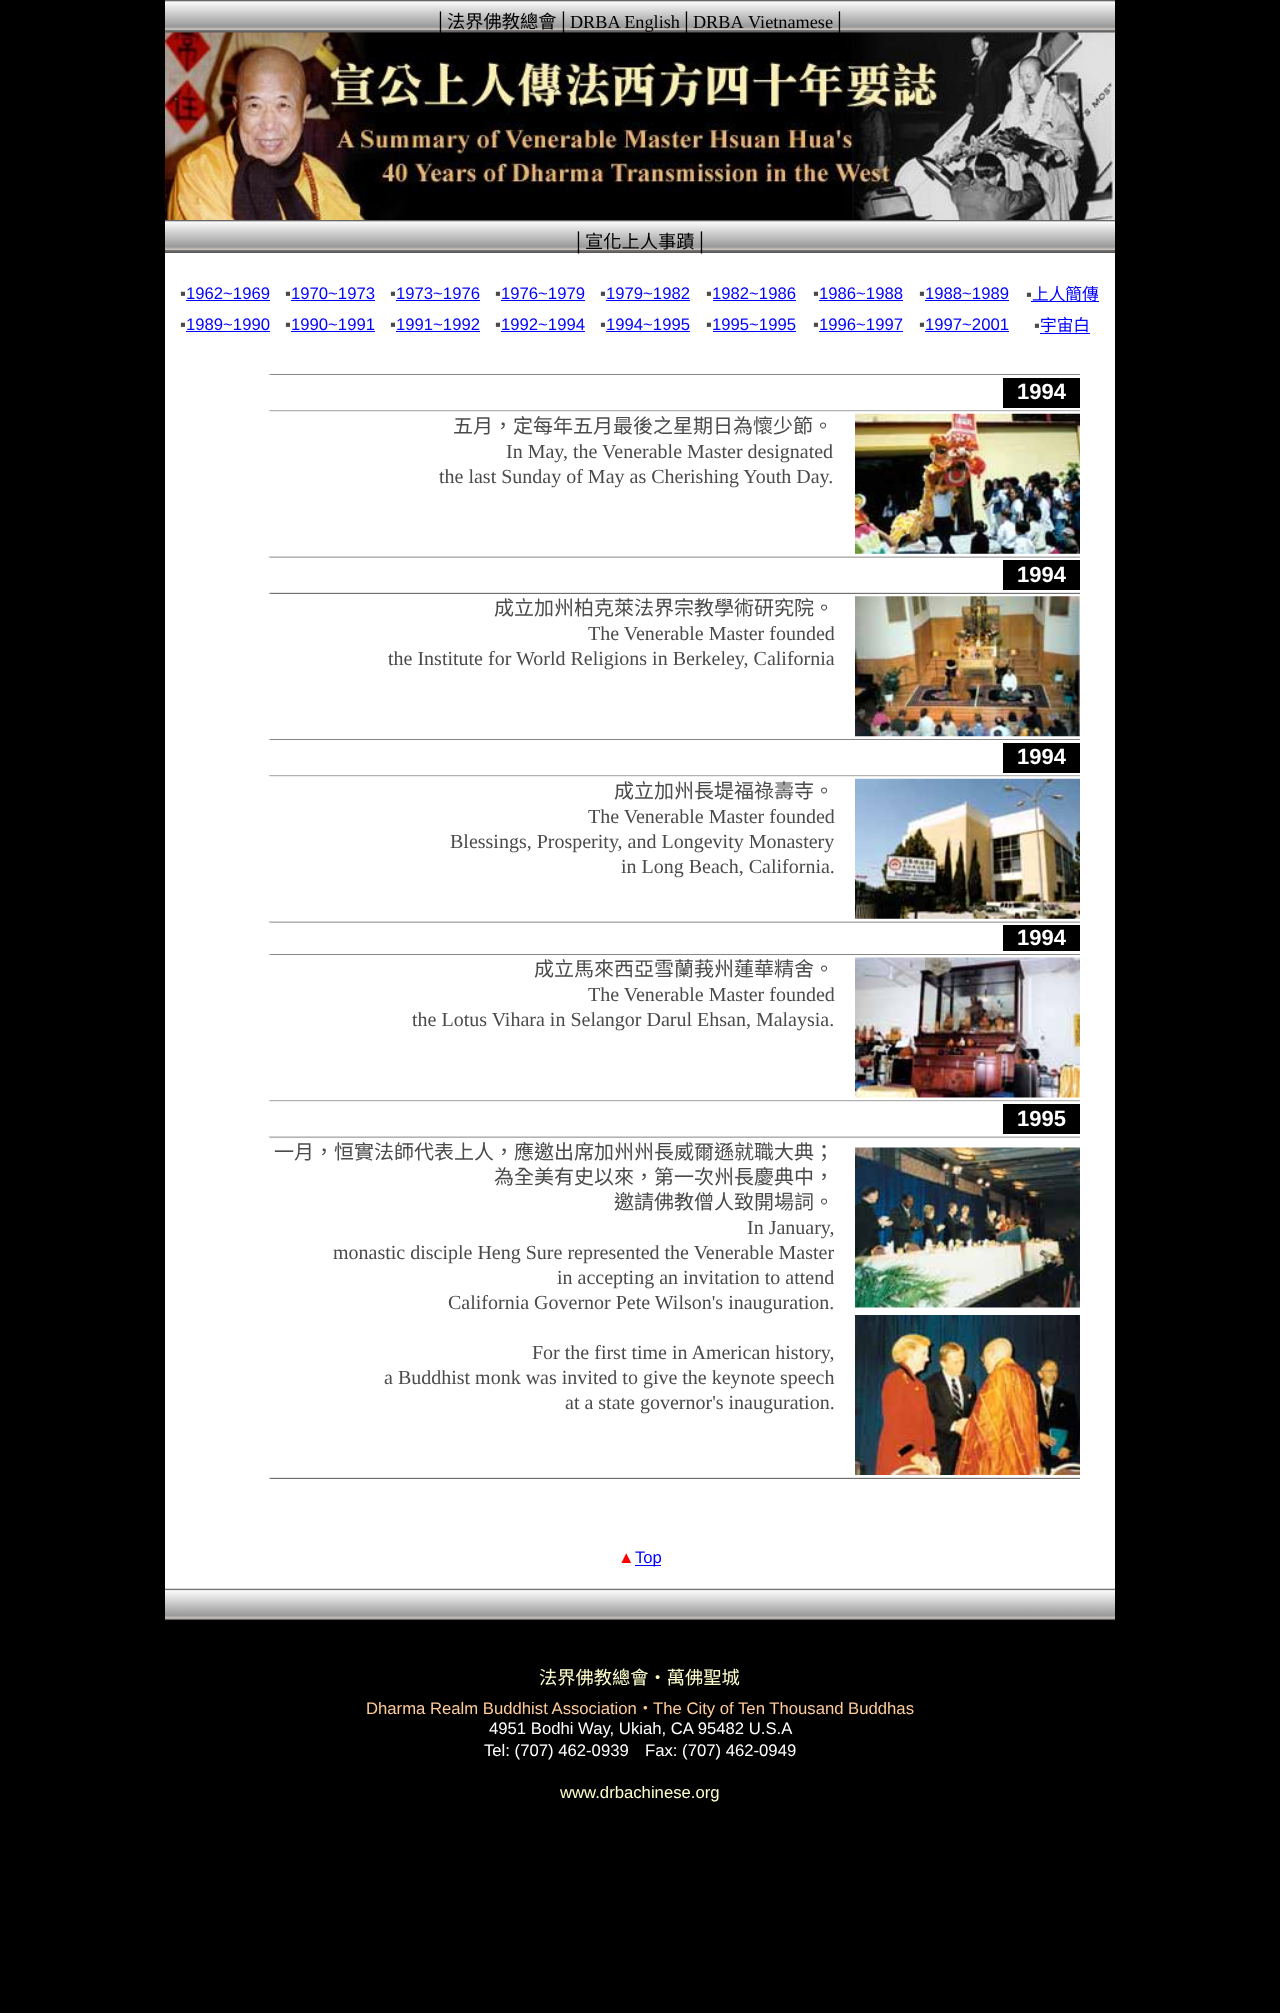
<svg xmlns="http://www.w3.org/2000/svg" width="1280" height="2013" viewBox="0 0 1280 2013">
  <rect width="100%" height="100%" fill="#000"/>
  <image x="165" y="0" width="950" height="33" href="img/1.png"/>
  <image x="165" y="220" width="950" height="33" href="img/1.png"/>
  <path d="M165 253h950v1336H165z" fill="#fff"/>
  <path d="M186 300h84v1H186z" fill="#00f"/>
  <path d="M291 300h84v1H291z" fill="#00f"/>
  <path d="M396 300h84v1H396z" fill="#00f"/>
  <path d="M501 300h84v1H501z" fill="#00f"/>
  <path d="M606 300h84v1H606z" fill="#00f"/>
  <path d="M713 300h83v1H713z" fill="#00f"/>
  <path d="M819 300h84v1H819z" fill="#00f"/>
  <path d="M925 300h84v1H925z" fill="#00f"/>
  <path d="M1031 301h68v1H1031z" fill="#00f"/>
  <path d="M186 331h84v1H186z" fill="#00f"/>
  <path d="M291 331h84v1H291z" fill="#00f"/>
  <path d="M396 331h84v1H396z" fill="#00f"/>
  <path d="M501 331h84v1H501z" fill="#00f"/>
  <path d="M606 331h84v1H606z" fill="#00f"/>
  <path d="M713 331h83v1H713z" fill="#00f"/>
  <path d="M819 331h84v1H819z" fill="#00f"/>
  <path d="M925 331h84v1H925z" fill="#00f"/>
  <path d="M1040 333h50v1H1040z" fill="#00f"/>
  <image x="268" y="374" width="812" height="1" href="img/3.png"/>
  <path d="M1003 378h77v30H1003z" fill="#000"/>
  <image x="268" y="410" width="812" height="2" href="img/4.png"/>
  <image x="855" y="413" width="225" height="141" href="img/5.png"/>
  <image x="268" y="556" width="812" height="2" href="img/6.png"/>
  <path d="M1003 560h77v30H1003z" fill="#000"/>
  <image x="268" y="592" width="812" height="2" href="img/7.png"/>
  <image x="855" y="596" width="225" height="141" href="img/8.png"/>
  <image x="268" y="739" width="812" height="1" href="img/3.png"/>
  <path d="M1003 743h77v30H1003z" fill="#000"/>
  <image x="268" y="775" width="812" height="2" href="img/4.png"/>
  <image x="855" y="778" width="225" height="141" href="img/9.png"/>
  <image x="268" y="921" width="812" height="2" href="img/6.png"/>
  <path d="M1003 925h77v26H1003z" fill="#000"/>
  <image x="268" y="954" width="812" height="1" href="img/3.png"/>
  <image x="855" y="957" width="225" height="141" href="img/10.png"/>
  <image x="268" y="1100" width="812" height="2" href="img/4.png"/>
  <path d="M1003 1104h77v30H1003z" fill="#000"/>
  <image x="268" y="1136" width="812" height="2" href="img/6.png"/>
  <image x="855" y="1147" width="225" height="161" href="img/11.png"/>
  <image x="855" y="1315" width="225" height="160" href="img/12.png"/>
  <image x="268" y="1477" width="812" height="2" href="img/7.png"/>
  <path d="M635 1565h26v1H635z" fill="#00f"/>
  <image x="165" y="1588" width="950" height="32" href="img/13.png"/>
  <text x="434" y="28" font-family="Liberation Serif" font-size="18.25" fill="#000">│</text>
  <text x="447" y="28" font-family="Noto Sans CJK TC" font-size="18.25" fill="#000">法界佛教總會</text>
  <g font-family="Liberation Serif" font-size="18.25" fill="#000">
    <text x="557" y="28">│DRBA English│DRBA</text>
    <text x="748" y="28">Vietnamese│</text>
  </g>
  <image x="165" y="32" width="950" height="188" href="img/2.png"/>
  <text x="572" y="248" font-family="Liberation Serif" font-size="18.25" fill="#000">│</text>
  <text x="585" y="248" font-family="Noto Sans CJK TC" font-size="18.25" fill="#000">宣化上人事蹟</text>
  <text x="695" y="248" font-family="Liberation Serif" font-size="18.25" fill="#000">│</text>
  <text x="180" y="299" font-family="Liberation Sans" font-size="16.7" fill="#4b4b4b">▪</text>
  <text x="186" y="299" font-family="Liberation Sans" font-size="16.7" fill="#00f">1962~1969</text>
  <text x="285" y="299" font-family="Liberation Sans" font-size="16.7" fill="#4b4b4b">▪</text>
  <text x="291" y="299" font-family="Liberation Sans" font-size="16.7" fill="#00f">1970~1973</text>
  <text x="390" y="299" font-family="Liberation Sans" font-size="16.7" fill="#4b4b4b">▪</text>
  <text x="396" y="299" font-family="Liberation Sans" font-size="16.7" fill="#00f">1973~1976</text>
  <text x="495" y="299" font-family="Liberation Sans" font-size="16.7" fill="#4b4b4b">▪</text>
  <text x="501" y="299" font-family="Liberation Sans" font-size="16.7" fill="#00f">1976~1979</text>
  <text x="600" y="299" font-family="Liberation Sans" font-size="16.7" fill="#4b4b4b">▪</text>
  <text x="606" y="299" font-family="Liberation Sans" font-size="16.7" fill="#00f">1979~1982</text>
  <text x="706" y="299" font-family="Liberation Sans" font-size="16.7" fill="#4b4b4b">▪</text>
  <text x="712" y="299" font-family="Liberation Sans" font-size="16.7" fill="#00f">1982~1986</text>
  <text x="813" y="299" font-family="Liberation Sans" font-size="16.7" fill="#4b4b4b">▪</text>
  <text x="819" y="299" font-family="Liberation Sans" font-size="16.7" fill="#00f">1986~1988</text>
  <text x="919" y="299" font-family="Liberation Sans" font-size="16.7" fill="#4b4b4b">▪</text>
  <text x="925" y="299" font-family="Liberation Sans" font-size="16.7" fill="#00f">1988~1989</text>
  <text x="1026" y="300" font-family="Liberation Sans" font-size="16.7" fill="#4b4b4b">▪</text>
  <text x="1032" y="300" font-family="Noto Sans CJK TC" font-size="16.7" fill="#00f">上人簡傳</text>
  <text x="180" y="330" font-family="Liberation Sans" font-size="16.7" fill="#4b4b4b">▪</text>
  <text x="186" y="330" font-family="Liberation Sans" font-size="16.7" fill="#00f">1989~1990</text>
  <text x="285" y="330" font-family="Liberation Sans" font-size="16.7" fill="#4b4b4b">▪</text>
  <text x="291" y="330" font-family="Liberation Sans" font-size="16.7" fill="#00f">1990~1991</text>
  <text x="390" y="330" font-family="Liberation Sans" font-size="16.7" fill="#4b4b4b">▪</text>
  <text x="396" y="330" font-family="Liberation Sans" font-size="16.7" fill="#00f">1991~1992</text>
  <text x="495" y="330" font-family="Liberation Sans" font-size="16.7" fill="#4b4b4b">▪</text>
  <text x="501" y="330" font-family="Liberation Sans" font-size="16.7" fill="#00f">1992~1994</text>
  <text x="600" y="330" font-family="Liberation Sans" font-size="16.7" fill="#4b4b4b">▪</text>
  <text x="606" y="330" font-family="Liberation Sans" font-size="16.7" fill="#00f">1994~1995</text>
  <text x="706" y="330" font-family="Liberation Sans" font-size="16.7" fill="#4b4b4b">▪</text>
  <text x="712" y="330" font-family="Liberation Sans" font-size="16.7" fill="#00f">1995~1995</text>
  <text x="813" y="330" font-family="Liberation Sans" font-size="16.7" fill="#4b4b4b">▪</text>
  <text x="819" y="330" font-family="Liberation Sans" font-size="16.7" fill="#00f">1996~1997</text>
  <text x="919" y="330" font-family="Liberation Sans" font-size="16.7" fill="#4b4b4b">▪</text>
  <text x="925" y="330" font-family="Liberation Sans" font-size="16.7" fill="#00f">1997~2001</text>
  <text x="1034" y="331" font-family="Liberation Sans" font-size="16.7" fill="#4b4b4b">▪</text>
  <text x="1040" y="331" font-family="Noto Sans CJK TC" font-size="16.7" fill="#00f">宇宙白</text>
  <text x="1017" y="399" font-family="Liberation Sans" font-size="22" font-weight="bold" fill="#fff">1994</text>
  <text x="453" y="433" font-family="Noto Sans CJK TC" font-size="20" fill="#4b4b4b">五月，定每年五月最後之星期日為懷少節。</text>
  <g font-family="Liberation Serif" font-size="20" fill="#4b4b4b">
    <text x="506" y="458">In May, the Venerable Master designated</text>
    <text x="439" y="483">the last Sunday of May as Cherishing Youth Day.</text>
  </g>
  <text x="1017" y="582" font-family="Liberation Sans" font-size="22" font-weight="bold" fill="#fff">1994</text>
  <text x="494" y="615" font-family="Noto Sans CJK TC" font-size="20" fill="#4b4b4b">成立加州柏克萊法界宗教學術研究院。</text>
  <g font-family="Liberation Serif" font-size="20" fill="#4b4b4b">
    <text x="588" y="640">The Venerable Master founded</text>
    <text x="388" y="665">the Institute for World Religions in Berkeley, California</text>
  </g>
  <text x="1017" y="764" font-family="Liberation Sans" font-size="22" font-weight="bold" fill="#fff">1994</text>
  <text x="614" y="798" font-family="Noto Sans CJK TC" font-size="20" fill="#4b4b4b">成立加州長堤福祿壽寺。</text>
  <g font-family="Liberation Serif" font-size="20" fill="#4b4b4b">
    <text x="588" y="823">The Venerable Master founded</text>
    <text x="450" y="848">Blessings, Prosperity, and Longevity Monastery</text>
    <text x="621" y="873">in Long Beach, California.</text>
  </g>
  <text x="1017" y="945" font-family="Liberation Sans" font-size="22" font-weight="bold" fill="#fff">1994</text>
  <text x="534" y="976" font-family="Noto Sans CJK TC" font-size="20" fill="#4b4b4b">成立馬來西亞雪蘭莪州蓮華精舍。</text>
  <g font-family="Liberation Serif" font-size="20" fill="#4b4b4b">
    <text x="588" y="1001">The Venerable Master founded</text>
    <text x="412" y="1026">the Lotus Vihara in Selangor Darul Ehsan, Malaysia.</text>
  </g>
  <text x="1017" y="1126" font-family="Liberation Sans" font-size="22" font-weight="bold" fill="#fff">1995</text>
  <g font-family="Noto Sans CJK TC" font-size="20" fill="#4b4b4b">
    <text x="274" y="1159">一月，恒實法師代表上人，應邀出席加州州長威爾遜就職大典；</text>
    <text x="494" y="1184">為全美有史以來，第一次州長慶典中，</text>
    <text x="614" y="1209">邀請佛教僧人致開場詞。</text>
  </g>
  <g font-family="Liberation Serif" font-size="20" fill="#4b4b4b">
    <text x="747" y="1234">In January,</text>
    <text x="333" y="1259">monastic disciple Heng Sure represented the Venerable Master</text>
    <text x="557" y="1284">in accepting an invitation to attend</text>
    <text x="448" y="1309">California Governor Pete Wilson's inauguration.</text>
    <text x="532" y="1359">For the first time in American history,</text>
    <text x="384" y="1384">a Buddhist monk was invited to give the keynote speech</text>
    <text x="565" y="1409">at a state governor's inauguration.</text>
  </g>
  <text x="618" y="1563" font-family="Liberation Sans" font-size="16.7" fill="#f00">▲</text>
  <text x="635" y="1563" font-family="Liberation Sans" font-size="16.7" fill="#00f">Top</text>
  <text x="539" y="1684" font-family="Noto Sans CJK TC" font-size="18.25" fill="#ffc">法界佛教總會‧萬佛聖城</text>
  <text x="366" y="1714" font-family="Liberation Sans" font-size="16.7" fill="#fc9">Dharma Realm Buddhist Association</text>
  <text x="637" y="1714" font-family="Noto Sans CJK TC" font-size="16.7" fill="#fc9">‧</text>
  <text x="653" y="1714" font-family="Liberation Sans" font-size="16.7" fill="#fc9">The City of Ten Thousand Buddhas</text>
  <g font-family="Liberation Sans" font-size="16.7" fill="#fff">
    <text x="489" y="1734">4951 Bodhi Way, Ukiah, CA 95482 U.S.A</text>
    <text x="484" y="1756">Tel: (707) 462-0939</text>
    <text x="645" y="1756">Fax: (707) 462-0949</text>
  </g>
  <text x="560" y="1798" font-family="Liberation Sans" font-size="16.7" fill="#ffc">www.drbachinese.org</text>
</svg>
